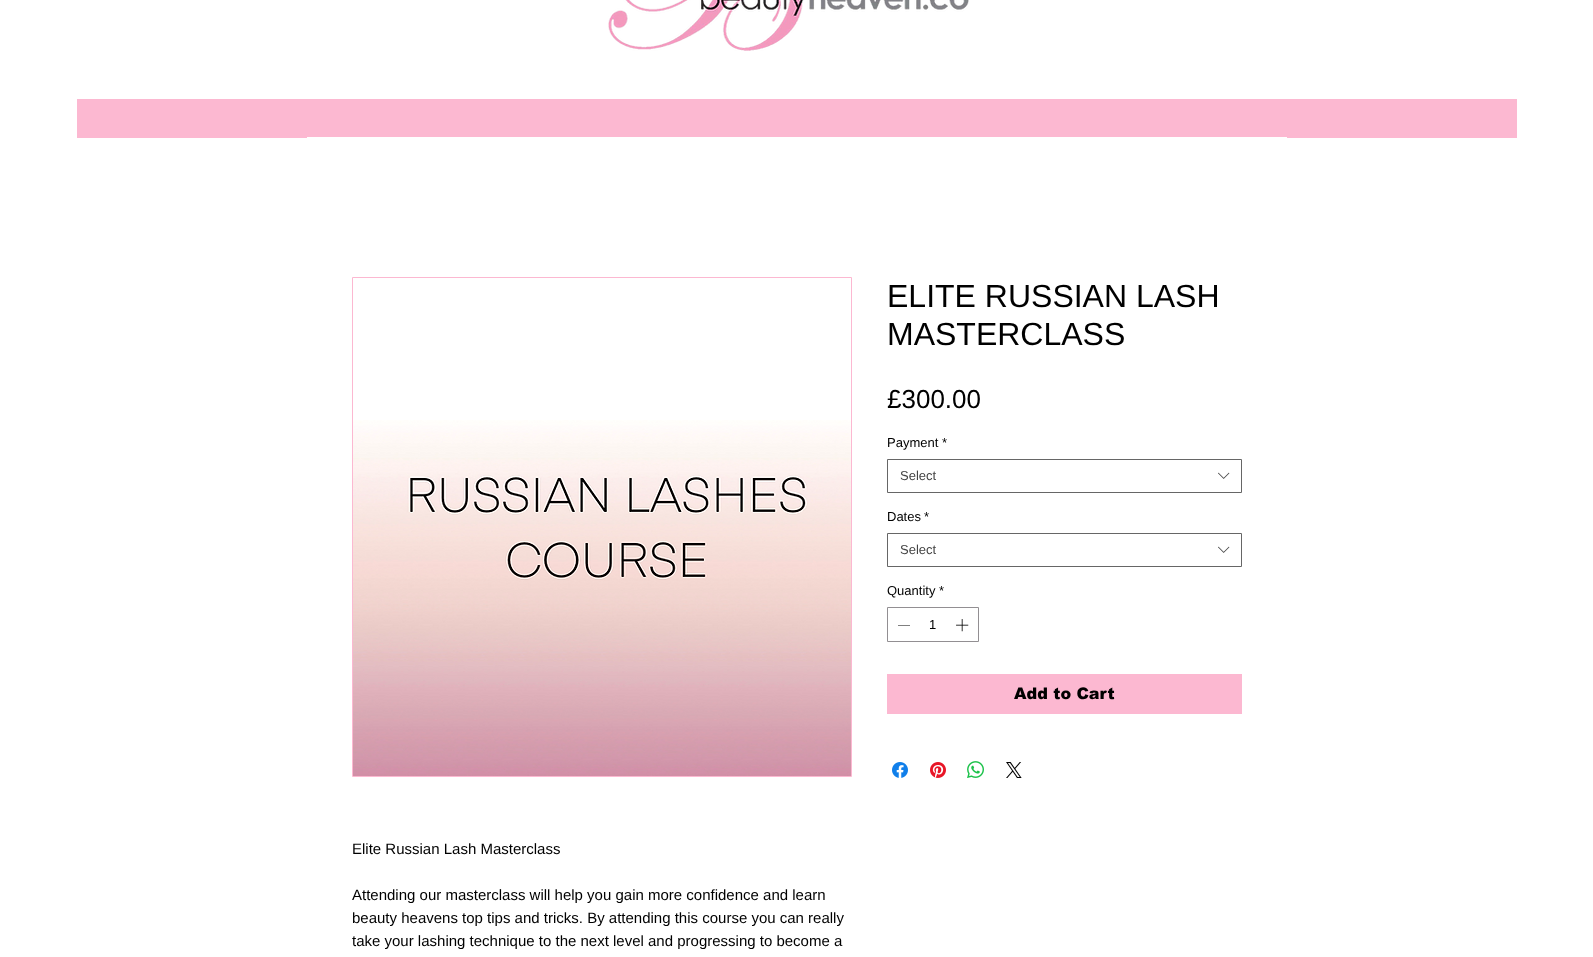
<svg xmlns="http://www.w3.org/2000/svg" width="1593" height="957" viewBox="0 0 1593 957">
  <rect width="100%" height="100%" fill="#fff"/>
  <image x="608" y="0" width="361" height="51" href="img/1.png"/>
  <path d="M77 99h1440v39H77z" fill="#fcb8d1"/>
  <path d="M307 137h980v1H307z" fill="#fff"/>
  <path d="M887.5 459.5h354v33H887.5z" fill="none" stroke="#666"/>
  <image x="1218" y="472" width="12" height="7" href="img/2.png"/>
  <path d="M887.5 533.5h354v33H887.5z" fill="none" stroke="#666"/>
  <image x="1218" y="546" width="12" height="7" href="img/2.png"/>
  <path d="M887.5 607.5h91v34H887.5z" fill="none" stroke="#928f92"/>
  <path d="M910 625V625.5H898V625Z" fill="#000" fill-rule="evenodd"/>
  <image x="956" y="619" width="13" height="13" href="img/3.png"/>
  <path d="M887 674h355v40H887z" fill="#fcb8d1"/>
  <image x="892" y="762" width="16" height="16" href="img/4.png"/>
  <image x="930" y="762" width="16" height="16" href="img/5.png"/>
  <image x="967" y="761" width="17" height="17" href="img/6.png"/>
  <image x="1006" y="762" width="16" height="16" href="img/7.png"/>
  <path d="M352.5 277.5h499v499H352.5z" fill="none" stroke="#fcb8d1"/>
  <image x="353" y="420" width="498" height="356" href="img/8.png"/>
  <g font-family="Liberation Sans" font-size="32" fill="#000">
    <text x="887" y="307">ELITE RUSSIAN LASH</text>
    <text x="887" y="345">MASTERCLASS</text>
  </g>
  <text x="887" y="408" font-family="Liberation Sans" font-size="26" fill="#000">£300.00</text>
  <g font-family="Liberation Sans" font-size="13" fill="#000">
    <text x="887" y="447">Payment</text>
    <text x="942" y="447">*</text>
  </g>
  <text x="900" y="480" font-family="Liberation Sans" font-size="13" fill="#444">Select</text>
  <g font-family="Liberation Sans" font-size="13" fill="#000">
    <text x="887" y="521">Dates</text>
    <text x="924" y="521">*</text>
  </g>
  <text x="900" y="554" font-family="Liberation Sans" font-size="13" fill="#444">Select</text>
  <g font-family="Liberation Sans" font-size="13" fill="#000">
    <text x="887" y="595">Quantity</text>
    <text x="939" y="595">*</text>
    <text x="929" y="629">1</text>
  </g>
  <text x="1014" y="699" font-family="arial" font-size="16" font-weight="900" fill="#000">Add to Cart</text>
  <g font-family="Liberation Sans" font-size="15" fill="#000">
    <text x="352" y="854">Elite Russian Lash Masterclass</text>
    <text x="352" y="900">Attending our masterclass will help you gain more confidence and learn</text>
    <text x="352" y="923">beauty heavens top tips and tricks. By attending this course you can really</text>
    <text x="352" y="946">take your lashing technique to the next level and progressing to become a</text>
  </g>
</svg>
